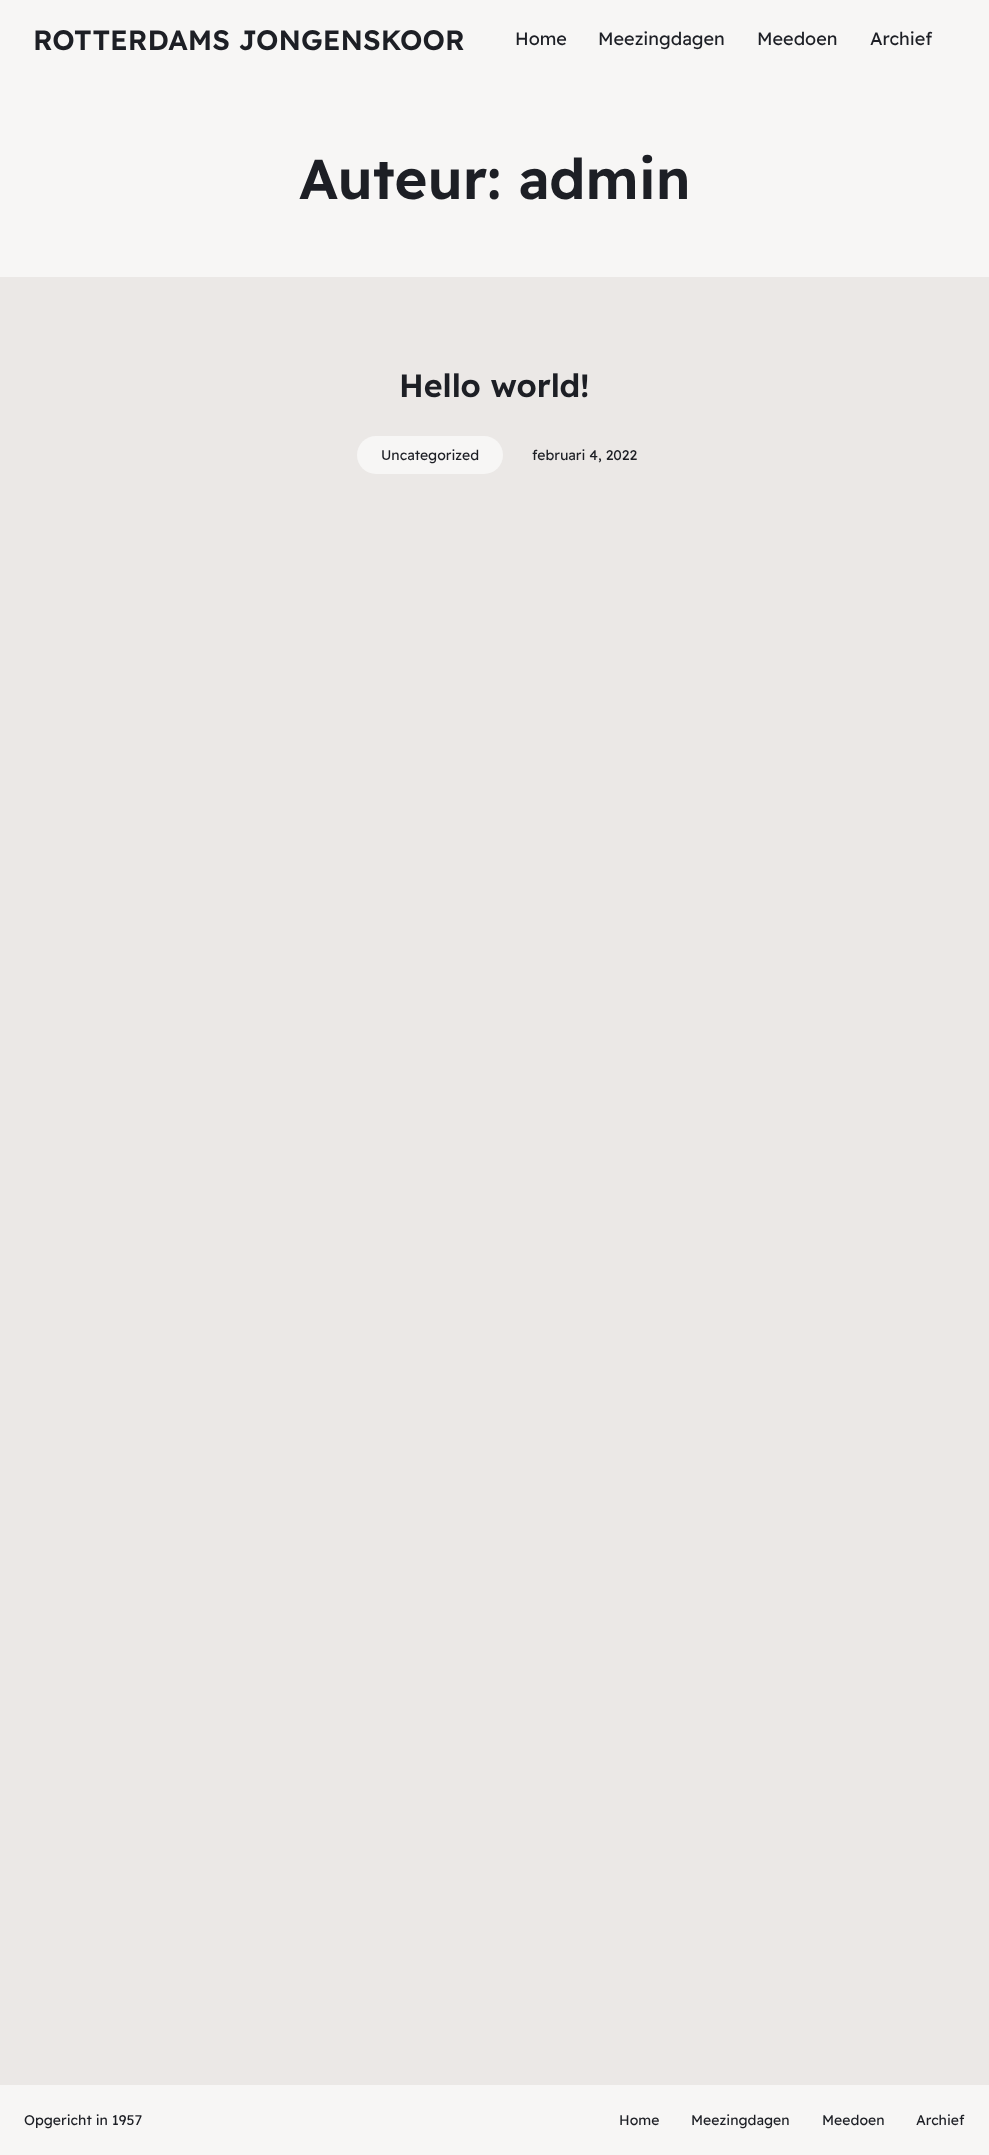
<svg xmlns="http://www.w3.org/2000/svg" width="989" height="2155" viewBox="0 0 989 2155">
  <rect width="100%" height="100%" fill="#ebe8e6"/>
  <path d="M0 0h989v277H0z" fill="#f7f6f5"/>
  <rect x="357" y="436" width="146" height="38" rx="19" fill="#f7f6f5"/>
  <path d="M0 2085h989v70H0z" fill="#f7f6f5"/>
  <text x="33" y="50" font-family="Readex Pro" font-size="28" font-weight="600" fill="#1d1f25">ROTTERDAMS JONGENSKOOR</text>
  <g font-family="Readex Pro" font-size="18" fill="#1d1f25">
    <text x="515" y="45">Home</text>
    <text x="598" y="45">Meezingdagen</text>
    <text x="757" y="45">Meedoen</text>
    <text x="870" y="45">Archief</text>
  </g>
  <text x="299" y="199" font-family="Readex Pro" font-size="56" font-weight="600" fill="#1d1f25">Auteur: admin</text>
  <text x="399" y="397" font-family="Readex Pro" font-size="32" font-weight="600" fill="#1d1f25">Hello world!</text>
  <g font-family="Readex Pro" font-size="14" fill="#1d1f25">
    <text x="381" y="460">Uncategorized</text>
    <text x="532" y="460">februari 4, 2022</text>
    <text x="24" y="2125">Opgericht in 1957</text>
    <text x="619" y="2125">Home</text>
    <text x="691" y="2125">Meezingdagen</text>
    <text x="822" y="2125">Meedoen</text>
    <text x="916" y="2125">Archief</text>
  </g>
</svg>
